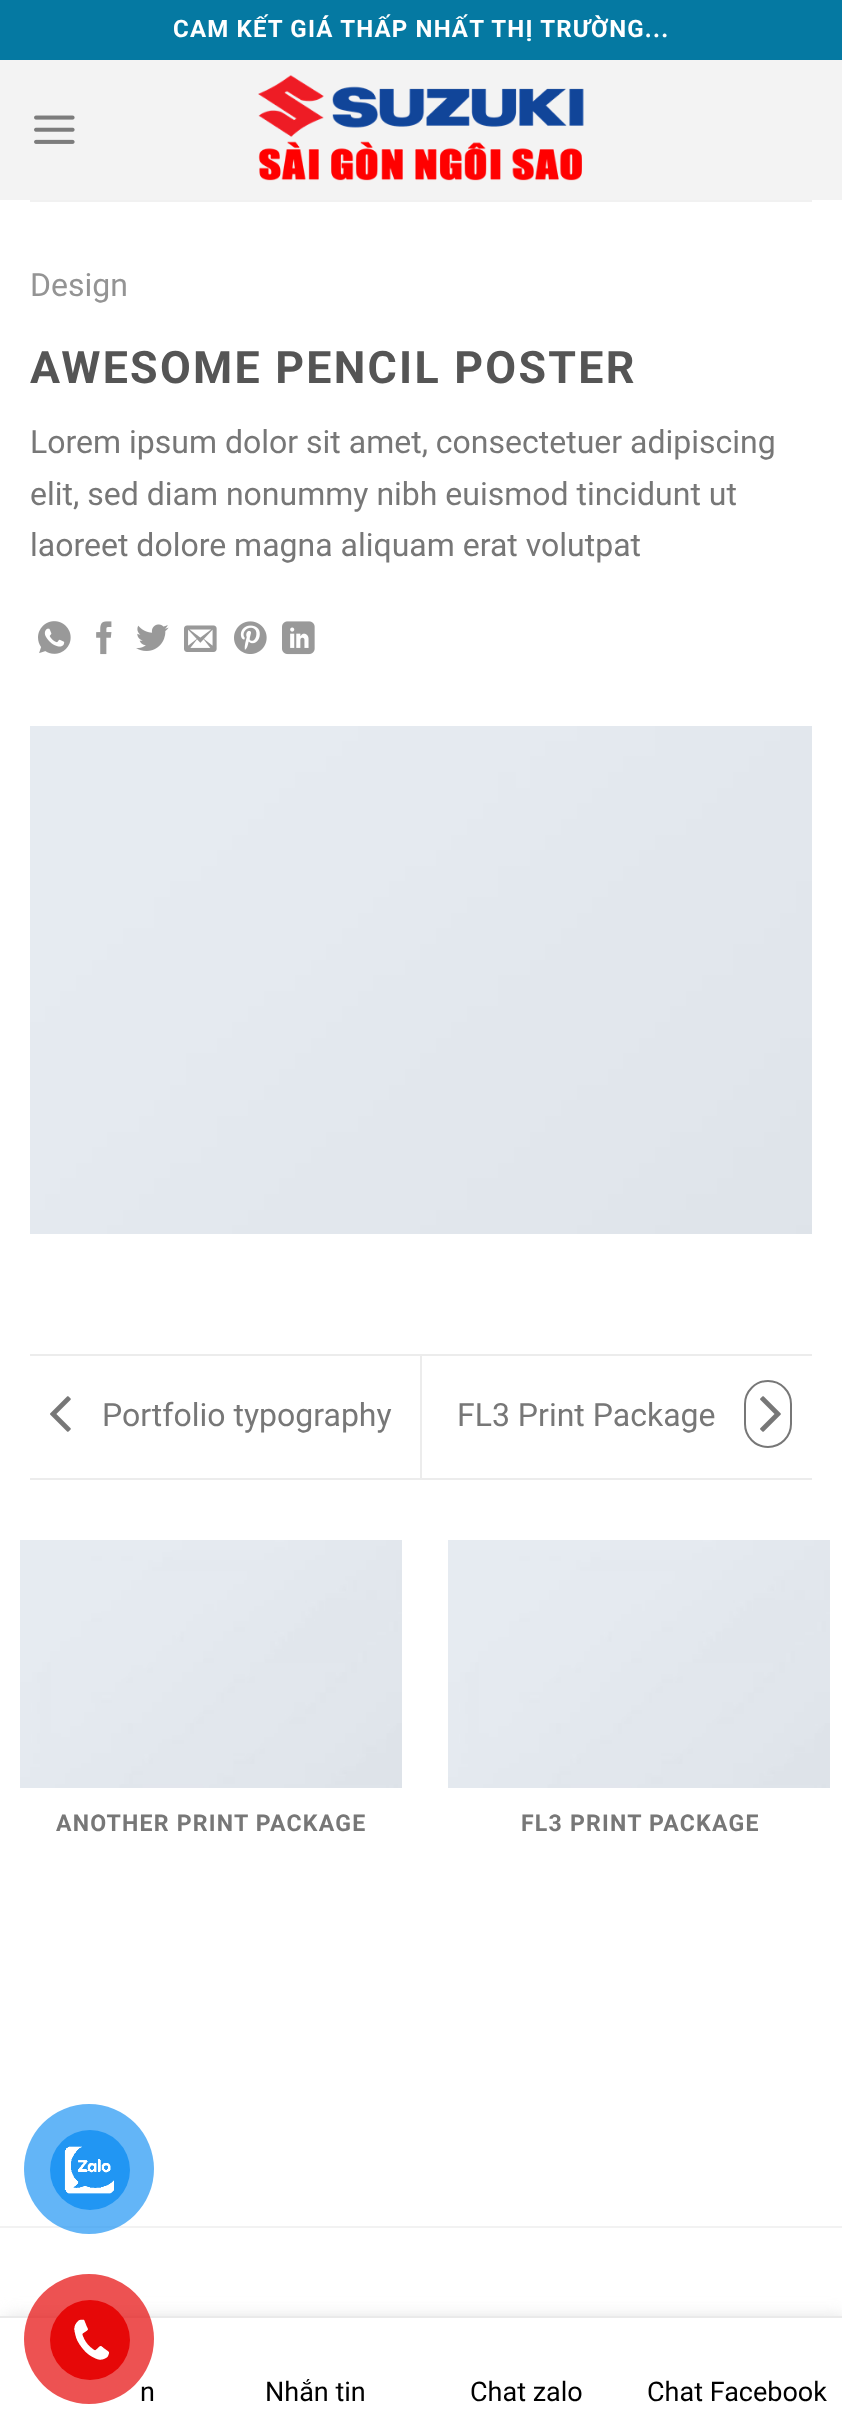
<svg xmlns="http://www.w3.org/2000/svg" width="842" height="2429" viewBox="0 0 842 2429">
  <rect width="100%" height="100%" fill="#fff"/>
  <path d="M0 60h842v140H0z" fill="#f3f3f3"/>
  <path d="M0 0h842v60H0z" fill="#0579a2"/>
  <image x="34" y="115" width="41" height="29" href="img/1.png"/>
  <image x="258" y="75" width="326" height="106" href="img/2.png"/>
  <path d="M30 200h782v2H30z" fill="#f1f1f1"/>
  <image x="38" y="621" width="33" height="33" href="img/3.png"/>
  <image x="96" y="621" width="16" height="34" href="img/4.png"/>
  <image x="136" y="624" width="33" height="27" href="img/5.png"/>
  <image x="184" y="625" width="33" height="27" href="img/6.png"/>
  <image x="234" y="621" width="33" height="33" href="img/7.png"/>
  <image x="282" y="621" width="33" height="34" href="img/8.png"/>
  <image x="30" y="726" width="782" height="508" href="img/9.png"/>
  <path d="M30 1354h782v2H30z" fill="#ececec"/>
  <path d="M30 1478h782v2H30z" fill="#ececec"/>
  <image x="50" y="1396" width="21" height="36" href="img/10.png"/>
  <path d="M420 1356h2v122H420z" fill="#ececec"/>
  <rect x="745" y="1381" width="46" height="66" rx="23" fill="none" stroke="#777" stroke-width="2"/>
  <image x="760" y="1396" width="21" height="36" href="img/11.png"/>
  <image x="20" y="1540" width="382" height="248" href="img/12.png"/>
  <image x="448" y="1540" width="382" height="248" href="img/12.png"/>
  <path d="M0 2226h842v2H0z" fill="#f2f2f2"/>
  <circle cx="89" cy="2169" r="65" fill="#2196f3b3"/>
  <circle cx="90" cy="2170" r="40" fill="#2196f3"/>
  <image x="64" y="2146" width="50" height="48" href="img/13.png"/>
  <path d="M4 2318h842v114H4z" fill="#dedede" filter="blur(9px)"/>
  <path d="M0 2318h842v111H0z" fill="#fff"/>
  <path d="M0 2316h842v2H0z" fill="#eaeaea"/>
  <text x="173" y="37" font-family="Roboto" font-size="24" font-weight="bold" letter-spacing="1.2" fill="#fff">CAM KẾT GIÁ THẤP NHẤT THỊ TRƯỜNG...</text>
  <text x="30" y="296" font-family="Roboto" font-size="32" fill="#949494">Design</text>
  <text x="30" y="383" font-family="Roboto" font-size="44.75" font-weight="bold" letter-spacing="2.25" fill="#555">AWESOME PENCIL POSTER</text>
  <g font-family="Roboto" font-size="32" fill="#777">
    <text x="30" y="453">Lorem ipsum dolor sit amet, consectetuer adipiscing</text>
    <text x="30" y="505">elit, sed diam nonummy nibh euismod tincidunt ut</text>
    <text x="30" y="556">laoreet dolore magna aliquam erat volutpat</text>
    <text x="102" y="1426">Portfolio typography</text>
    <text x="457" y="1426">FL3 Print Package</text>
  </g>
  <g font-family="Roboto" font-size="23.1" font-weight="bold" letter-spacing="1.2" fill="#777">
    <text x="56" y="1831">ANOTHER PRINT PACKAGE</text>
    <text x="521" y="1831">FL3 PRINT PACKAGE</text>
  </g>
  <text x="140" y="2401" font-family="Roboto" font-size="27" fill="#000">n</text>
  <circle cx="89" cy="2339" r="65" fill="#e60808b3"/>
  <circle cx="90" cy="2340" r="40" fill="#e60808"/>
  <image x="74" y="2319" width="35" height="41" href="img/14.png"/>
  <g font-family="Roboto" font-size="27" fill="#000">
    <text x="265" y="2401">Nhắn tin</text>
    <text x="470" y="2401">Chat zalo</text>
    <text x="647" y="2401">Chat Facebook</text>
  </g>
</svg>
